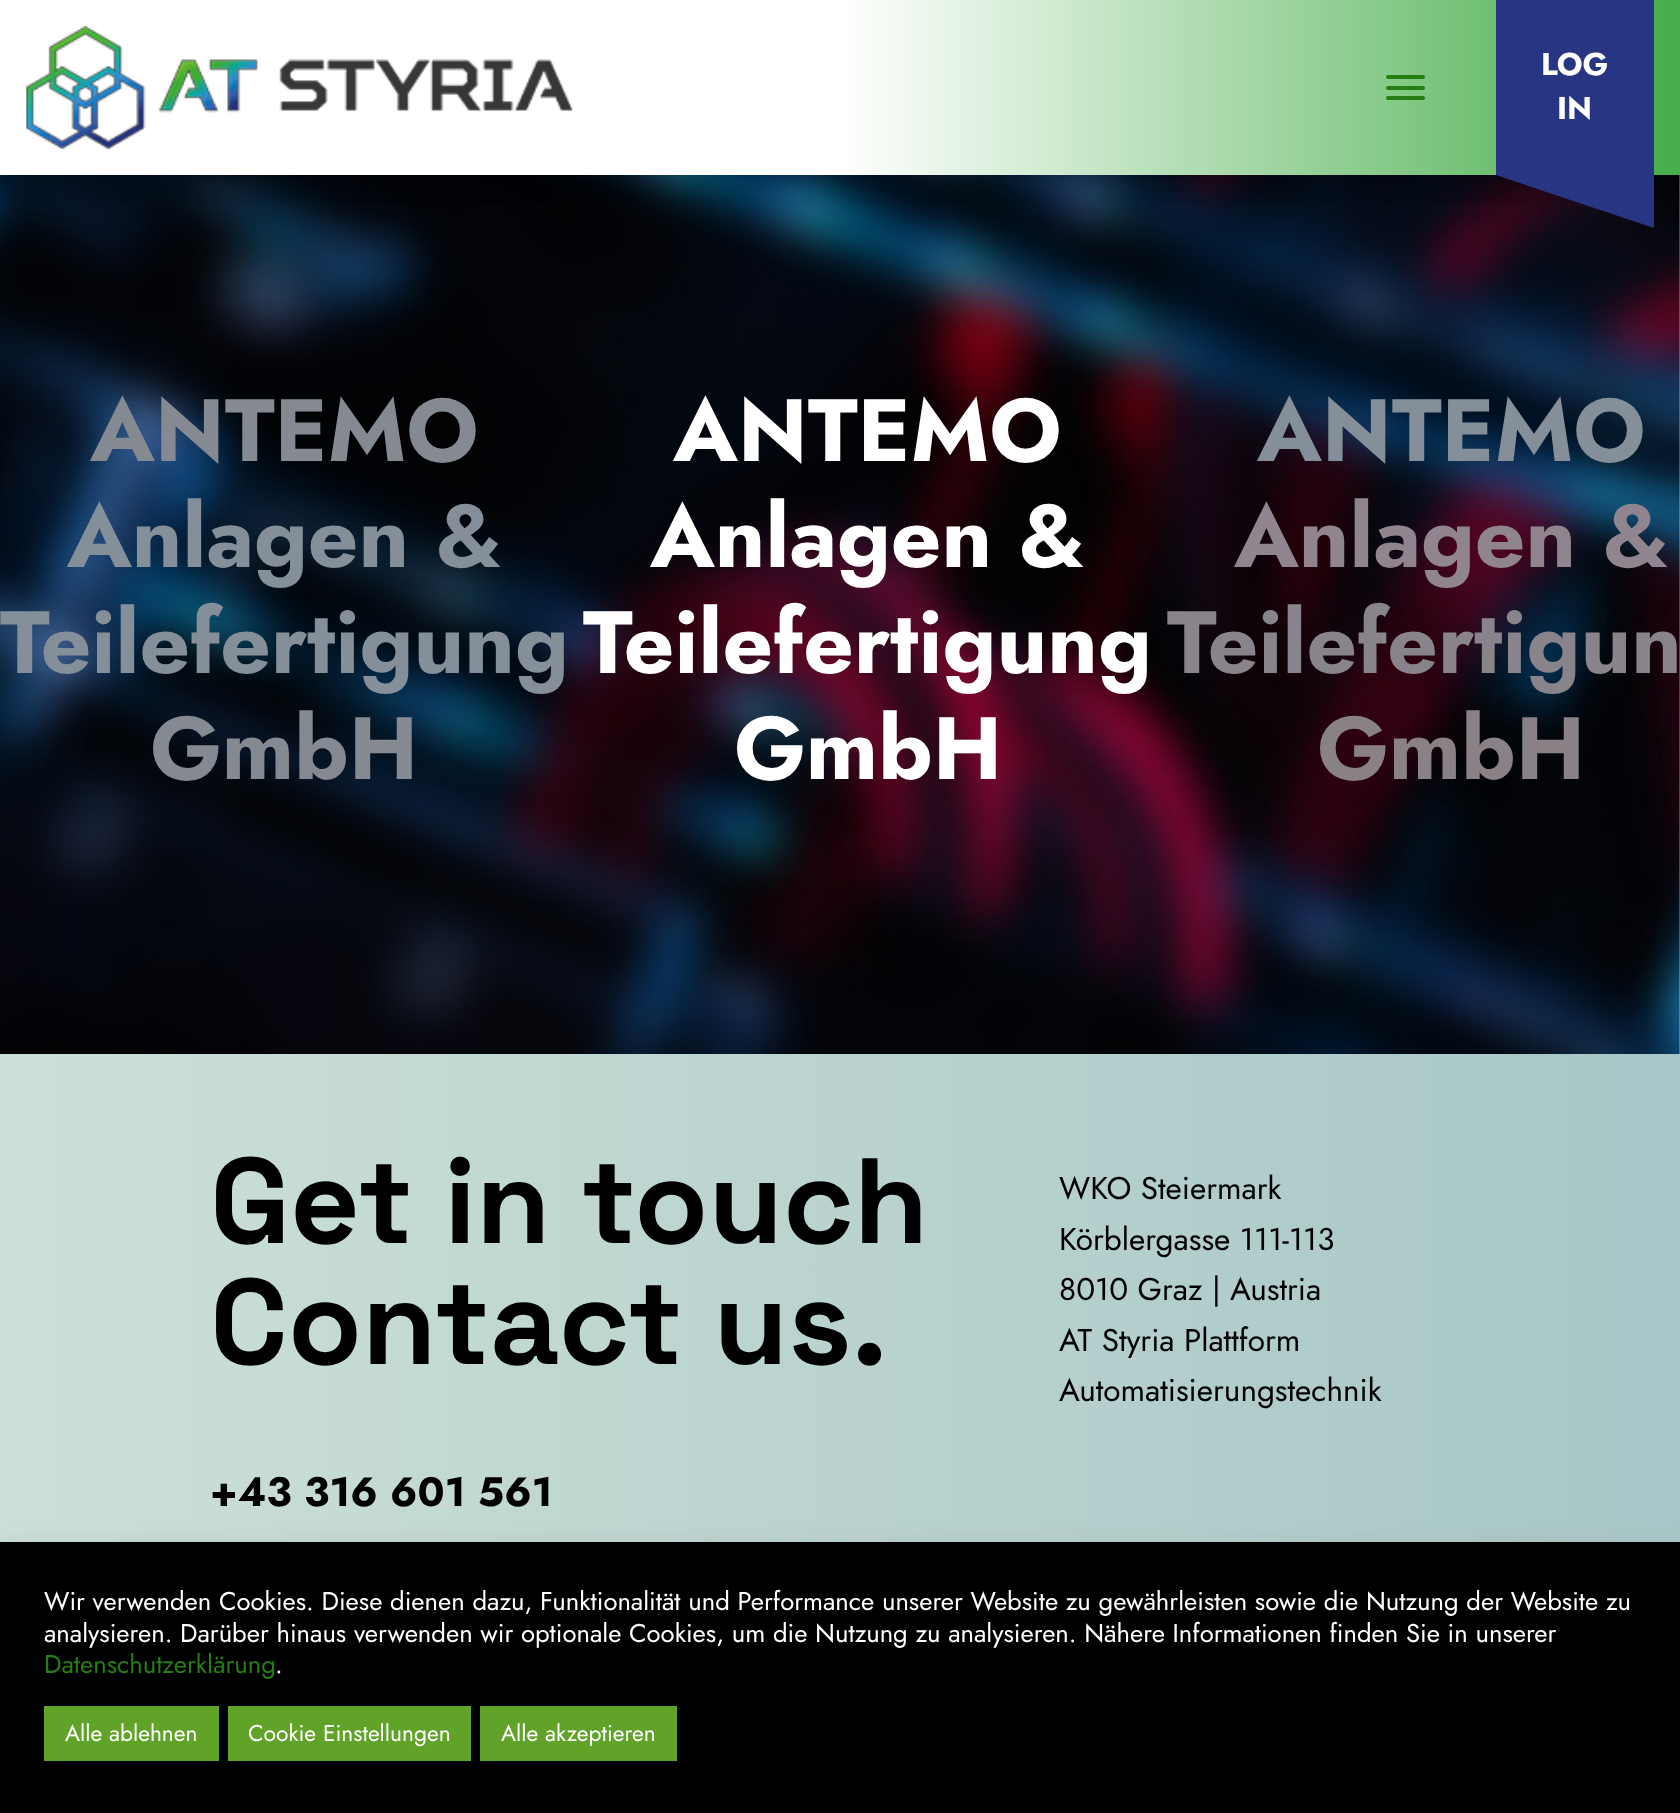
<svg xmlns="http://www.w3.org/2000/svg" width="1680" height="1813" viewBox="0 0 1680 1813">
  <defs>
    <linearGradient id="g1" gradientUnits="userSpaceOnUse" x1="0" y1="88" x2="1680" y2="87"><stop offset="0" stop-color="#fff"/><stop offset="0.5" stop-color="#fff"/><stop offset="1" stop-color="#46ad4a"/></linearGradient>
    <linearGradient id="g2" gradientUnits="userSpaceOnUse" x1="0" y1="1608" x2="1680" y2="1608"><stop offset="0" stop-color="#cde0d7"/><stop offset="1" stop-color="#a7c6c7"/></linearGradient>
  </defs>
  <rect width="100%" height="100%" fill="#fff"/>
  <image x="0" y="175" width="1680" height="879" href="img/2.png"/>
  <path d="M9 9h1662v157H9z" fill="#00000033" filter="blur(17.5px)"/>
  <path d="M0 0h1680v175H0z" fill="url(#g1)"/>
  <image x="26" y="26" width="547" height="123" href="img/1.png"/>
  <rect x="1386" y="75" width="39" height="4" rx="2" fill="#267e13"/>
  <rect x="1386" y="86" width="39" height="4" rx="2" fill="#267e13"/>
  <rect x="1386" y="96" width="39" height="4" rx="2" fill="#267e13"/>
  <path d="M1496 0h158v175H1496z" fill="#283583"/>
  <path d="M1654 175V228L1496 175Z" fill="#283583"/>
  <path d="M0 1054h1680v488H0z" fill="url(#g2)"/>
  <path d="M0 1540h1680v271H0z" fill="#acabab4d" filter="blur(9px)"/>
  <path d="M0 1542h1680v271H0z" fill="#000"/>
  <path d="M44 1706h175v55H44z" fill="#61a229"/>
  <path d="M228 1706h243v55H228z" fill="#61a229"/>
  <path d="M480 1706h197v55H480z" fill="#61a229"/>
  <g font-family="Jost" font-size="31.5" font-weight="bold" fill="#fff">
    <text x="1541" y="75">LOG</text>
    <text x="1557" y="119">IN</text>
  </g>
  <text x="90" y="461" font-family="Jost" font-size="88.25" font-weight="bold" fill="#858a92">ANTEMO</text>
  <g font-family="Jost" font-size="88.25" font-weight="bold" fill="#858f9a">
    <text x="67" y="567">Anlagen &amp;</text>
    <text x="0" y="673">Teilefertigung</text>
  </g>
  <text x="150" y="779" font-family="Jost" font-size="88.25" font-weight="bold" fill="#858a92">GmbH</text>
  <g font-family="Jost" font-size="88.25" font-weight="bold" fill="#fff">
    <text x="673" y="461">ANTEMO</text>
    <text x="650" y="567">Anlagen &amp;</text>
    <text x="583" y="673">Teilefertigung</text>
    <text x="734" y="779">GmbH</text>
  </g>
  <text x="1257" y="461" font-family="Jost" font-size="88.25" font-weight="bold" fill="#858f9a">ANTEMO</text>
  <text x="1234" y="567" font-family="Jost" font-size="88.25" font-weight="bold" fill="#90858e">Anlagen &amp;</text>
  <text x="1167" y="673" font-family="Jost" font-size="88.25" font-weight="bold" fill="#89848b">Teilefertigun</text>
  <text x="1317" y="779" font-family="Jost" font-size="88.25" font-weight="bold" fill="#898185">GmbH</text>
  <g font-family="Space Grotesk" font-size="121" font-weight="300" fill="#000">
    <text x="210" y="1243">Get in touch</text>
    <text x="210" y="1364">Contact us.</text>
  </g>
  <g font-family="Jost" font-size="31.5" fill="#000">
    <text x="1059" y="1199">WKO Steiermark</text>
    <text x="1059" y="1250">Körblergasse 111-113</text>
    <text x="1059" y="1300">8010 Graz | Austria</text>
    <text x="1059" y="1351">AT Styria Plattform</text>
    <text x="1059" y="1401">Automatisierungstechnik</text>
  </g>
  <text x="210" y="1506" font-family="Jost" font-size="41" font-weight="bold" fill="#000">+43 316 601 561</text>
  <g font-family="Jost" font-size="25.67" fill="#fff">
    <text x="44" y="1610">Wir verwenden Cookies. Diese dienen dazu, Funktionalität und Performance unserer Website zu gewährleisten sowie die Nutzung der Website zu</text>
    <text x="44" y="1642">analysieren. Darüber hinaus verwenden wir optionale Cookies, um die Nutzung zu analysieren. Nähere Informationen finden Sie in unserer</text>
  </g>
  <text x="44" y="1673" font-family="Jost" font-size="25.67" fill="#267e13">Datenschutzerklärung</text>
  <text x="275" y="1673" font-family="Jost" font-size="25.67" fill="#fff">.</text>
  <g font-family="Jost" font-size="22.75" fill="#fff">
    <text x="65" y="1741">Alle ablehnen</text>
    <text x="248" y="1741">Cookie Einstellungen</text>
    <text x="501" y="1741">Alle akzeptieren</text>
  </g>
</svg>
